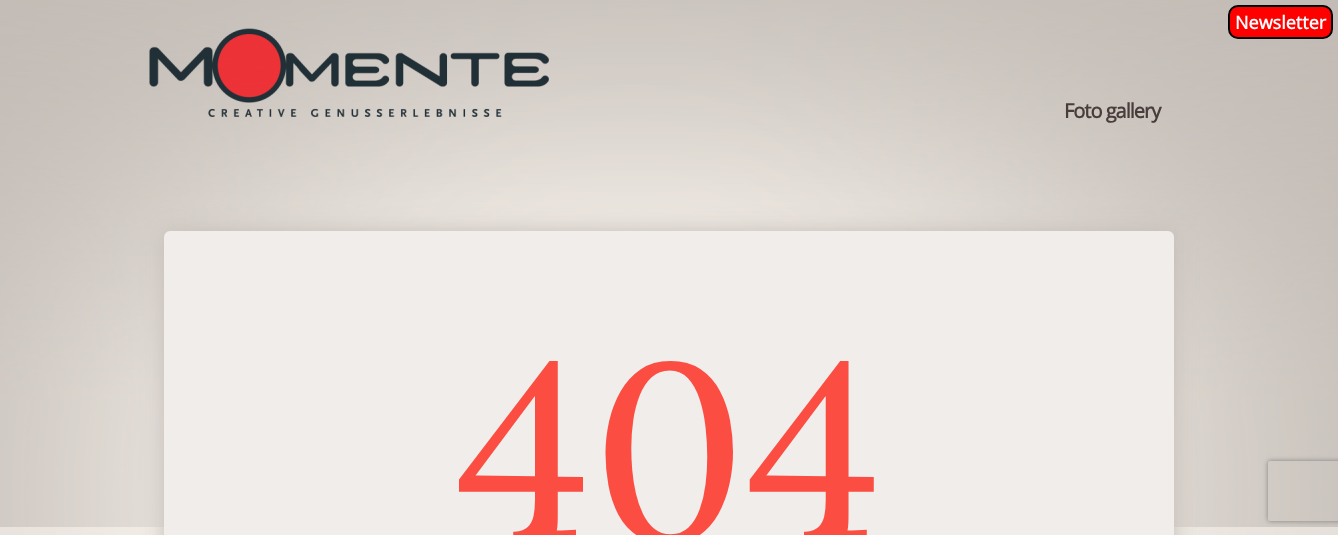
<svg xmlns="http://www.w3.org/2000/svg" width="1338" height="535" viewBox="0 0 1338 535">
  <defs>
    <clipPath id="clip1"><path d="M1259 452H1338V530H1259ZM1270 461H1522C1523 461 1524 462 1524 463V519C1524 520 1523 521 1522 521H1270C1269 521 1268 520 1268 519V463C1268 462 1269 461 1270 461Z" clip-rule="evenodd"/></clipPath>
  </defs>
  <rect width="100%" height="100%" fill="#dfdad4"/>
  <path d="M0 0h1338v527H0z" fill="#c0b9b3"/>
  <image x="0" y="0" width="1338" height="535" href="img/1.png"/>
  <rect x="1229" y="6" width="103" height="32" rx="9" fill="#f00" stroke="#000" stroke-width="2"/>
  <image x="149" y="28" width="400" height="89" href="img/2.png"/>
  <rect x="164" y="231" width="1010" height="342" rx="6" fill="#c4bdb7" filter="blur(10.5px)"/>
  <rect x="164" y="231" width="1010" height="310" rx="6" fill="#f0edea"/>
  <g clip-path="url(#clip1)">
    <rect x="1268" y="461" width="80" height="60" rx="2" fill="#808080" filter="blur(2.5px)"/>
  </g>
  <text x="1235" y="29" font-family="Open Sans" font-size="18" font-weight="bold" fill="#fff">Newsletter</text>
  <text x="1064" y="118" font-family="Open Sans" font-size="20" font-weight="bold" letter-spacing="-1" fill="#493d3b">Foto gallery</text>
  <text x="456" y="540" font-family="Lora" font-size="250" fill="#fc4d43">404</text>
</svg>
